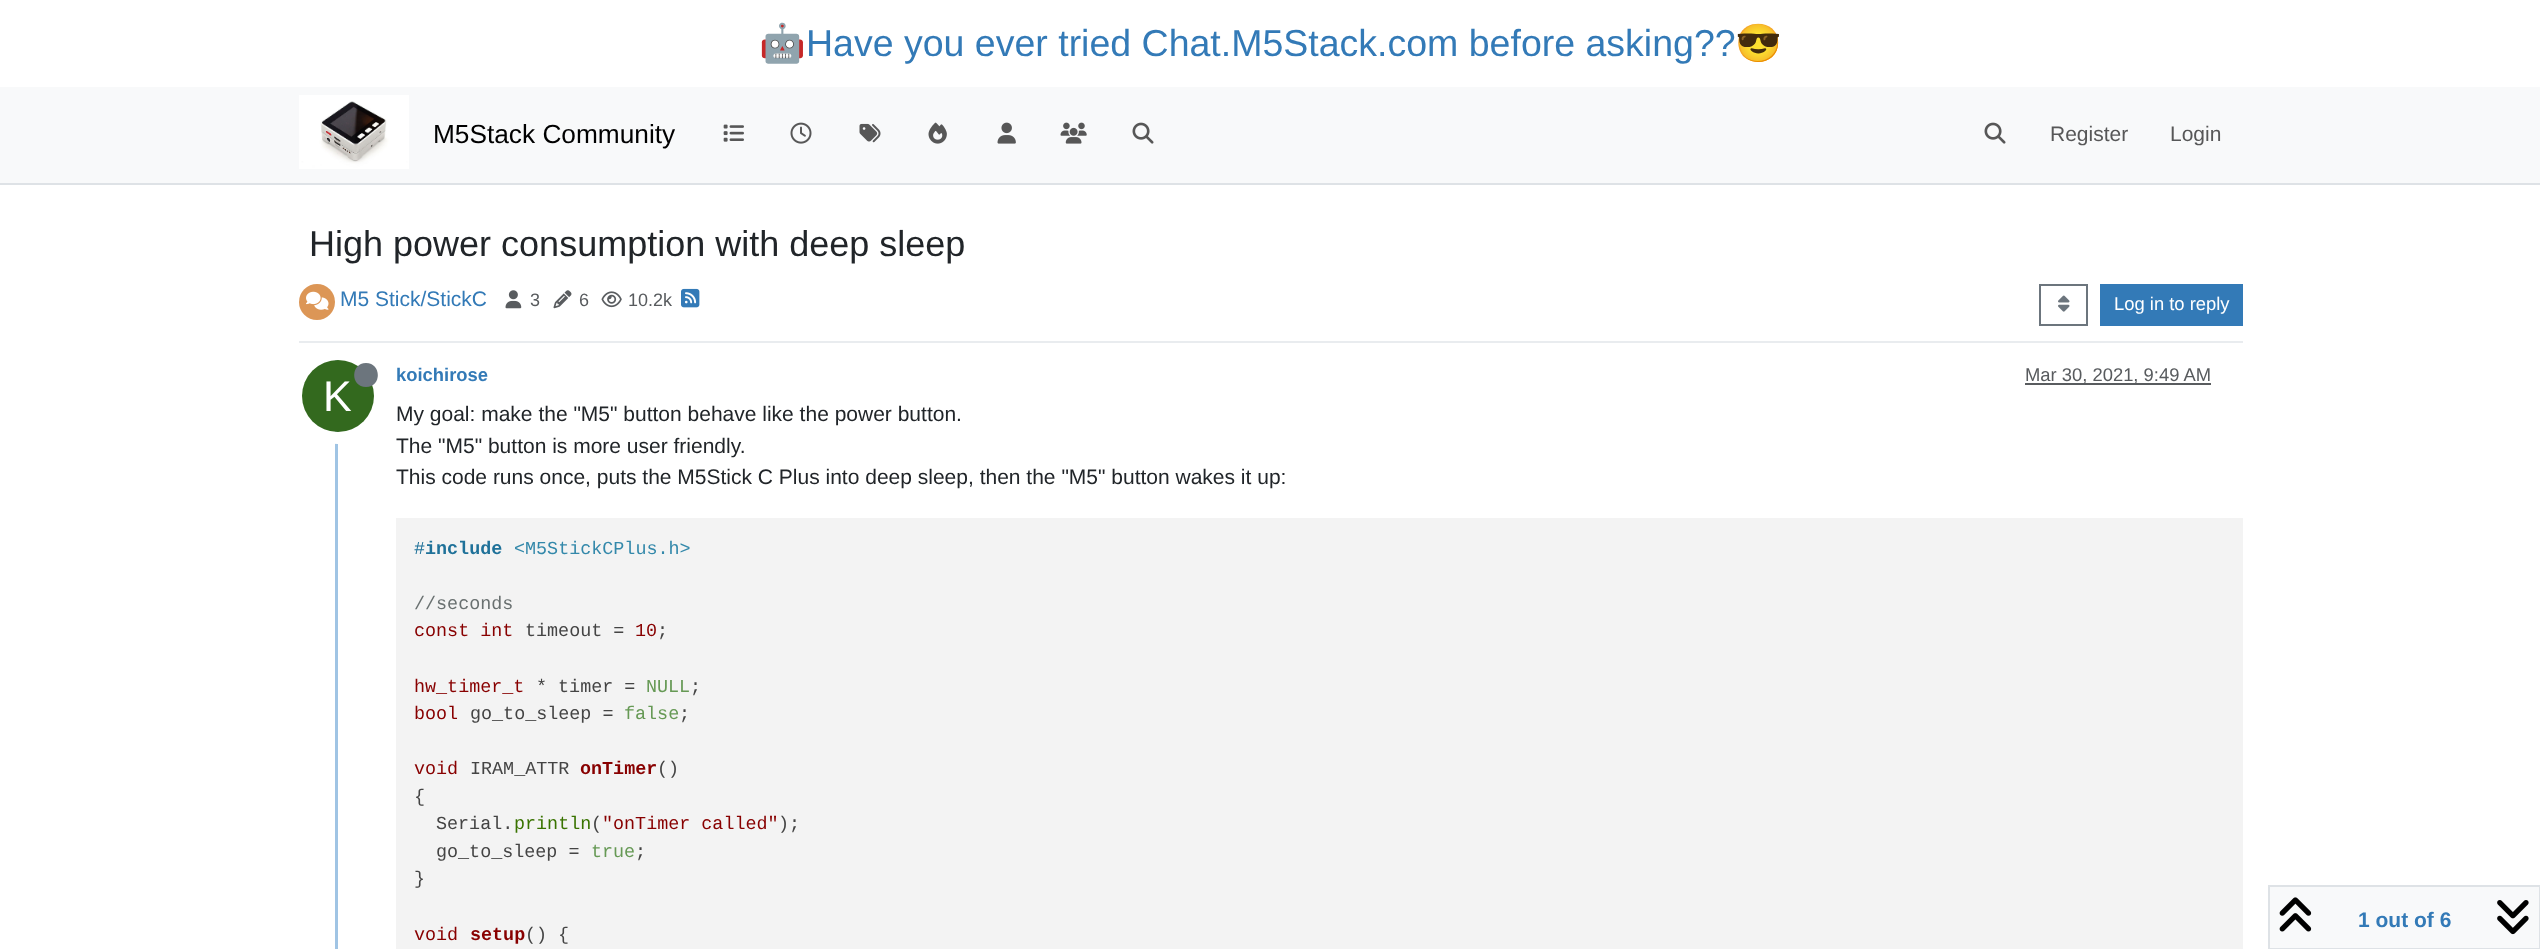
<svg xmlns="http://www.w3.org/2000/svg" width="2540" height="949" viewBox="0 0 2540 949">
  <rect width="100%" height="100%" fill="#fff"/>
  <path d="M0 87h2540v96H0z" fill="#f8f9fa"/>
  <path d="M0 183h2540v2H0z" fill="#dee2e6"/>
  <image x="299" y="95" width="110" height="74" href="img/1.png"/>
  <image x="723" y="124" width="21" height="18" href="img/2.png"/>
  <image x="790" y="122" width="22" height="22" href="img/3.png"/>
  <image x="859" y="123" width="22" height="20" href="img/4.png"/>
  <image x="928" y="122" width="19" height="22" href="img/5.png"/>
  <image x="997" y="122" width="19" height="22" href="img/6.png"/>
  <image x="1060" y="122" width="27" height="22" href="img/7.png"/>
  <image x="1132" y="122" width="22" height="22" href="img/8.png"/>
  <image x="1984" y="122" width="22" height="22" href="img/8.png"/>
  <path d="M299 341h1944v2H299z" fill="#e9ecef"/>
  <circle cx="317" cy="302" r="18" fill="#dc9656"/>
  <image x="306" y="291" width="23" height="19" href="img/9.png"/>
  <image x="505" y="290" width="17" height="19" href="img/10.png"/>
  <image x="553" y="290" width="19" height="19" href="img/11.png"/>
  <image x="601" y="291" width="21" height="17" href="img/12.png"/>
  <image x="681" y="288" width="19" height="20" href="img/13.png"/>
  <path d="M2040 285h47v40H2040z" fill="none" stroke="#6c757d" stroke-width="2"/>
  <image x="2058" y="295" width="12" height="17" href="img/14.png"/>
  <path d="M2100 284h143v42H2100z" fill="#337ab7"/>
  <path d="M335 357h3v592H335z" fill="#a0c4e4"/>
  <path d="M2025 383h186v2H2025z" fill="#595c5f"/>
  <circle cx="338" cy="396" r="42" fill="none" stroke="#fff" stroke-width="12"/>
  <circle cx="338" cy="396" r="36" fill="#33691e"/>
  <path d="M366 387C382 387 381.5 363 366 363C350.5 363 350 387 366 387Z" fill="#6c757d"/>
  <path d="M396 518h1847v431H396z" fill="#f3f3f3"/>
  <path d="M2269 886h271v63H2269z" fill="#f8f9fa" stroke="#dee2e6" stroke-width="2"/>
  <image x="2279" y="897" width="33" height="35" href="img/15.png"/>
  <image x="2497" y="900" width="32" height="35" href="img/16.png"/>
  <text x="759" y="56" font-family="Noto Color Emoji" font-size="37.5" fill="#337ab7">🤖</text>
  <text x="806" y="56" font-family="Liberation Sans" font-size="37.5" fill="#337ab7">Have you ever tried Chat.M5Stack.com before asking??</text>
  <text x="1735" y="56" font-family="Noto Color Emoji" font-size="37.5" fill="#337ab7">😎</text>
  <text x="433" y="143" font-family="Liberation Sans" font-size="26.25" fill="#000">M5Stack Community</text>
  <g font-family="Liberation Sans" font-size="21" fill="#575758">
    <text x="2050" y="141">Register</text>
    <text x="2170" y="141">Login</text>
  </g>
  <text x="309" y="256" font-family="Liberation Sans" font-size="36" fill="#212529">High power consumption with deep sleep</text>
  <text x="340" y="306" font-family="Liberation Sans" font-size="21" fill="#337ab7">M5 Stick/StickC</text>
  <g font-family="Liberation Sans" font-size="18" fill="#585b5e">
    <text x="530" y="306">3</text>
    <text x="579" y="306">6</text>
    <text x="628" y="306">10.2k</text>
  </g>
  <text x="2114" y="310" font-family="Liberation Sans" font-size="18.4" fill="#fff">Log in to reply</text>
  <text x="396" y="381" font-family="Liberation Sans" font-size="18.4" font-weight="bold" fill="#337ab7">koichirose</text>
  <text x="2025" y="381" font-family="Liberation Sans" font-size="18.4" fill="#585b5e">Mar 30, 2021, 9:49 AM</text>
  <text x="323" y="411" font-family="Liberation Sans" font-size="43" fill="#fff">K</text>
  <g font-family="Liberation Sans" font-size="21" fill="#212529">
    <text x="396" y="421">My goal: make the "M5" button behave like the power button.</text>
    <text x="396" y="453">The "M5" button is more user friendly.</text>
    <text x="396" y="484">This code runs once, puts the M5Stick C Plus into deep sleep, then the "M5" button wakes it up:</text>
  </g>
  <text x="414" y="554" font-family="Liberation Mono" font-size="18.4" fill="#1f7199">#</text>
  <text x="425" y="554" font-family="Liberation Mono" font-size="18.4" font-weight="bold" fill="#1f7199">include</text>
  <text x="514" y="554" font-family="Liberation Mono" font-size="18.4" fill="#38a">&lt;M5StickCPlus.h&gt;</text>
  <text x="414" y="609" font-family="Liberation Mono" font-size="18.4" fill="#697070">//seconds</text>
  <text x="414" y="636" font-family="Liberation Mono" font-size="18.4" fill="#800">const int</text>
  <text x="525" y="636" font-family="Liberation Mono" font-size="18.4" fill="#444">timeout =</text>
  <text x="635" y="636" font-family="Liberation Mono" font-size="18.4" fill="#800">10</text>
  <text x="657" y="636" font-family="Liberation Mono" font-size="18.4" fill="#444">;</text>
  <text x="414" y="692" font-family="Liberation Mono" font-size="18.4" fill="#800">hw_timer_t</text>
  <text x="536" y="692" font-family="Liberation Mono" font-size="18.4" fill="#444">* timer =</text>
  <text x="646" y="692" font-family="Liberation Mono" font-size="18.4" fill="#695">NULL</text>
  <text x="690" y="692" font-family="Liberation Mono" font-size="18.4" fill="#444">;</text>
  <text x="414" y="719" font-family="Liberation Mono" font-size="18.4" fill="#800">bool</text>
  <text x="470" y="719" font-family="Liberation Mono" font-size="18.4" fill="#444">go_to_sleep =</text>
  <text x="624" y="719" font-family="Liberation Mono" font-size="18.4" fill="#695">false</text>
  <text x="679" y="719" font-family="Liberation Mono" font-size="18.4" fill="#444">;</text>
  <text x="414" y="774" font-family="Liberation Mono" font-size="18.4" fill="#800">void</text>
  <text x="470" y="774" font-family="Liberation Mono" font-size="18.4" fill="#444">IRAM_ATTR</text>
  <text x="580" y="774" font-family="Liberation Mono" font-size="18.4" font-weight="bold" fill="#800">onTimer</text>
  <g font-family="Liberation Mono" font-size="18.4" fill="#444">
    <text x="657" y="774">()</text>
    <text x="414" y="802">{</text>
    <text x="436" y="829">Serial.</text>
  </g>
  <text x="514" y="829" font-family="Liberation Mono" font-size="18.4" fill="#397300">println</text>
  <text x="591" y="829" font-family="Liberation Mono" font-size="18.4" fill="#444">(</text>
  <text x="602" y="829" font-family="Liberation Mono" font-size="18.4" fill="#800">"onTimer called"</text>
  <g font-family="Liberation Mono" font-size="18.4" fill="#444">
    <text x="778" y="829">);</text>
    <text x="436" y="857">go_to_sleep =</text>
  </g>
  <text x="591" y="857" font-family="Liberation Mono" font-size="18.4" fill="#695">true</text>
  <g font-family="Liberation Mono" font-size="18.4" fill="#444">
    <text x="635" y="857">;</text>
    <text x="414" y="884">}</text>
  </g>
  <text x="414" y="940" font-family="Liberation Mono" font-size="18.4" fill="#800">void</text>
  <text x="470" y="940" font-family="Liberation Mono" font-size="18.4" font-weight="bold" fill="#800">setup</text>
  <text x="525" y="940" font-family="Liberation Mono" font-size="18.4" fill="#444">() {</text>
  <text x="2358" y="927" font-family="Liberation Sans" font-size="21" font-weight="bold" fill="#337ab7">1 out of 6</text>
</svg>
